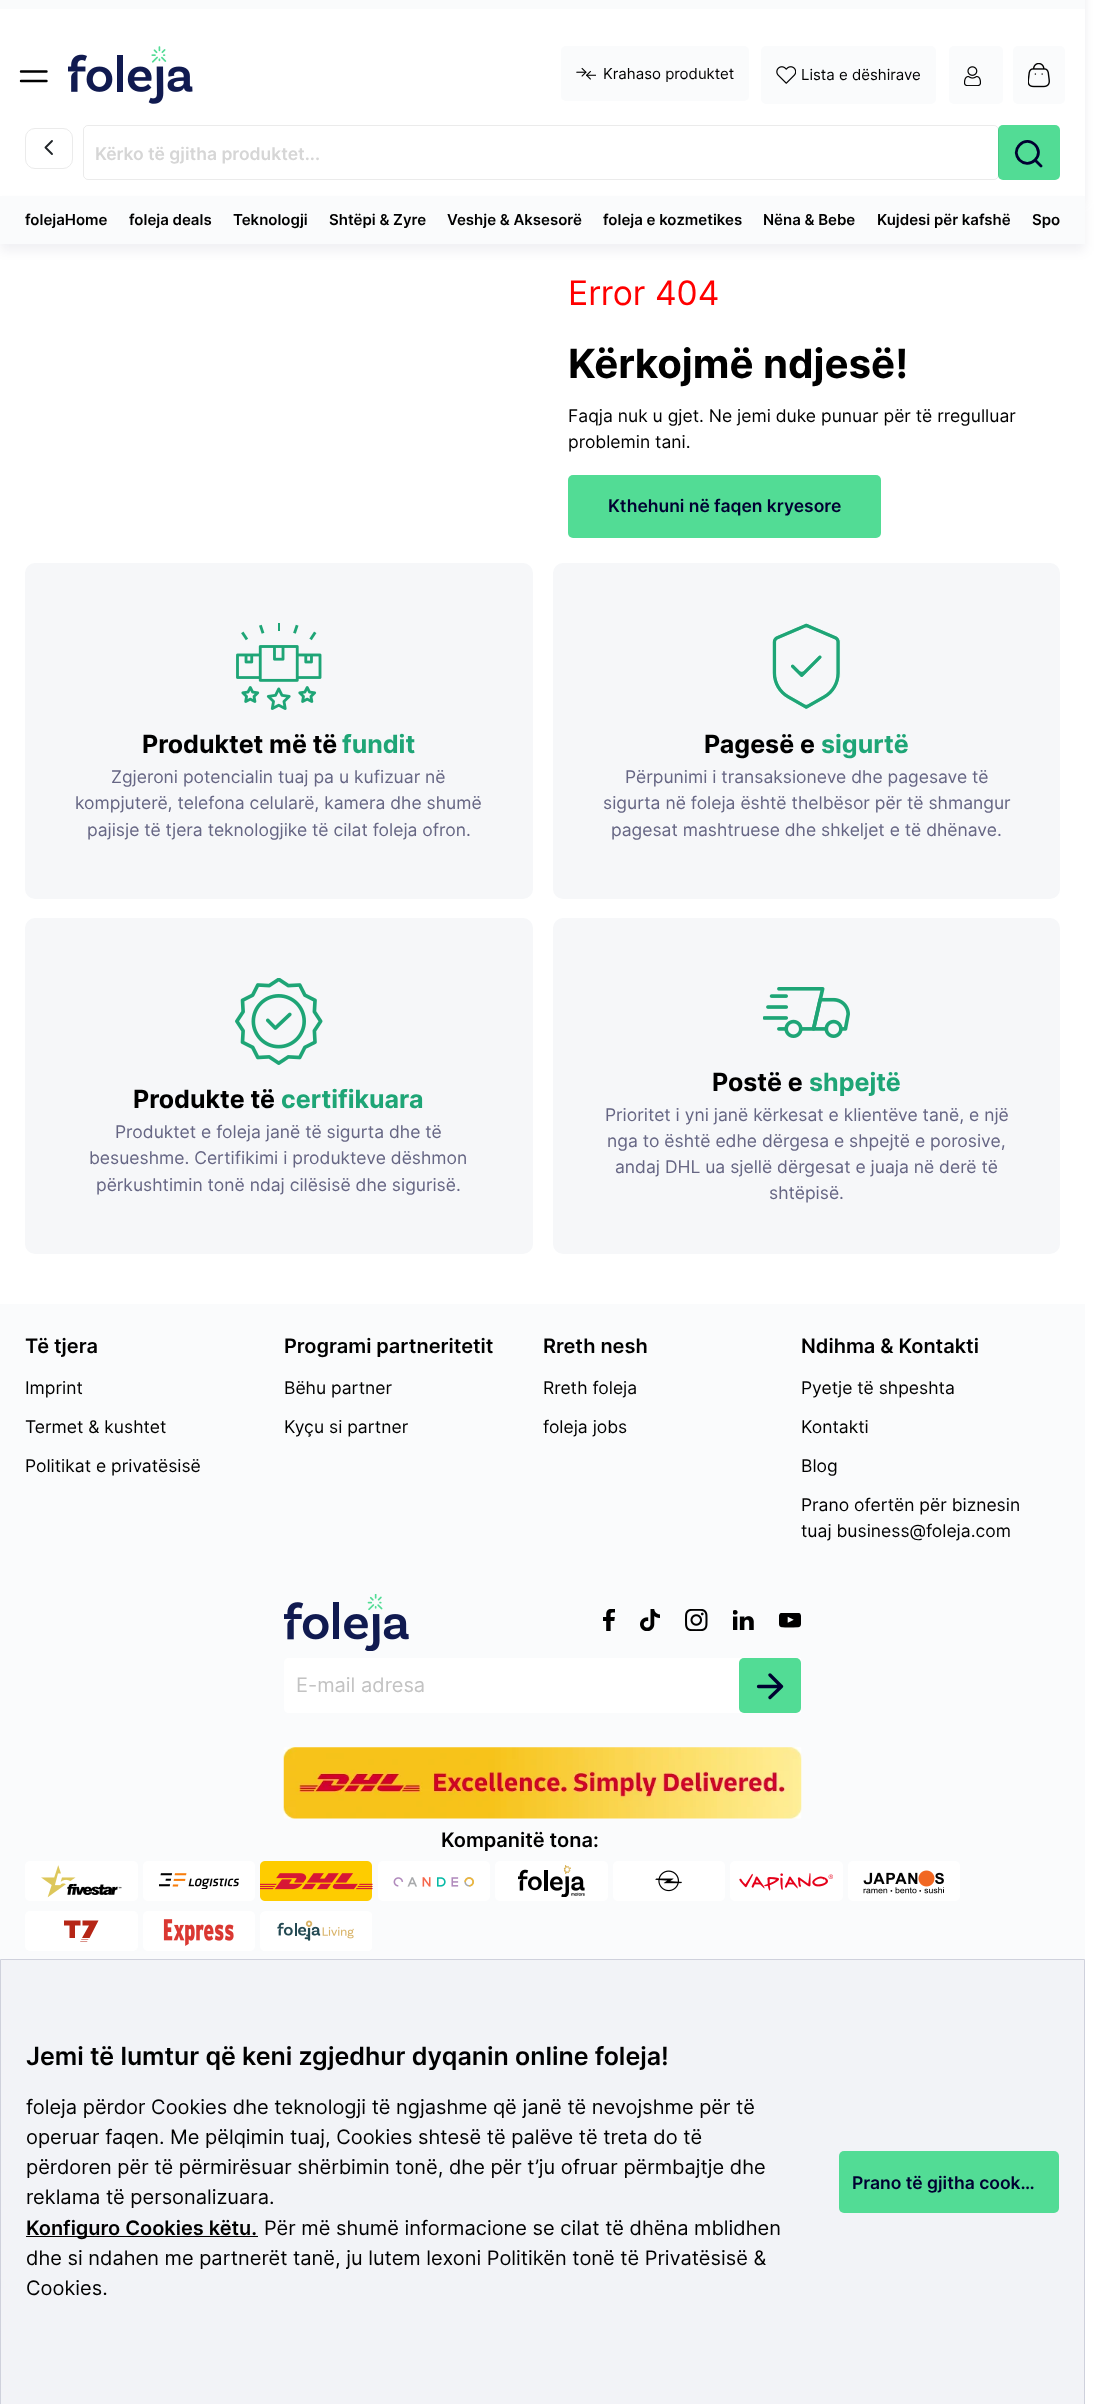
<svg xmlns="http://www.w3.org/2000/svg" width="1103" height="2404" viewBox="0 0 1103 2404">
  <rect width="100%" height="100%" fill="#fff"/>
  <path d="M0 -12h1085v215H0z" fill="#00003214" filter="blur(4px)"/>
  <path d="M0 9h1085v187H0z" fill="#fff"/>
  <path d="M0 0h1085v9H0z" fill="#fafbfc"/>
  <path d="M21 81H46.5M21 71.5H46.5" fill="none" stroke="#000" stroke-width="2.4" stroke-linecap="round" stroke-linejoin="round"/>
  <image x="68" y="46" width="125" height="58" href="img/1.png"/>
  <rect x="561" y="46" width="188" height="55" rx="5" fill="#fafbfc"/>
  <image x="576" y="67" width="20" height="13" href="img/2.png"/>
  <rect x="761" y="46" width="175" height="58" rx="5" fill="#fafbfc"/>
  <image x="776" y="66" width="20" height="18" href="img/3.png"/>
  <rect x="949" y="46" width="54" height="58" rx="5" fill="#fafbfc"/>
  <image x="964" y="66" width="17" height="20" href="img/4.png"/>
  <rect x="1013" y="46" width="52" height="58" rx="5" fill="#fafbfc"/>
  <image x="1028" y="63" width="22" height="25" href="img/5.png"/>
  <rect x="25.5" y="128.5" width="47" height="40" rx="9.5" fill="none" stroke="#ebebeb"/>
  <path d="M52 154L45.5 147.5L52 141" fill="none" stroke="#212529" stroke-width="1.9" stroke-linecap="round" stroke-linejoin="round"/>
  <rect x="998" y="125" width="62" height="55" rx="5" fill="#52dc95"/>
  <rect x="83.5" y="125.5" width="915" height="54" rx="4.5" fill="none" stroke="#00000014"/>
  <path d="M1035 160C1025 170 1009.5 155.5 1019.5 145C1029.5 134 1045.5 150 1035 160L1041 166Z" fill="none" stroke="#000032" stroke-width="2.8" stroke-linecap="round" stroke-linejoin="round"/>
  <path d="M0 204h1085v47H0z" fill="#0000320f" filter="blur(5.5px)"/>
  <path d="M0 196h1085v48H0z" fill="#fafbfc"/>
  <rect x="568" y="475" width="313" height="63" rx="5" fill="#52dc95"/>
  <path d="M0 1304h1085v655H0z" fill="#fafbfc"/>
  <rect x="25" y="563" width="508" height="336" rx="10" fill="#f6f7f9"/>
  <image x="236" y="623" width="86" height="87" href="img/6.png"/>
  <rect x="553" y="563" width="507" height="336" rx="10" fill="#f6f7f9"/>
  <image x="772" y="623" width="69" height="87" href="img/7.png"/>
  <rect x="25" y="918" width="508" height="336" rx="10" fill="#f6f7f9"/>
  <image x="235" y="978" width="88" height="87" href="img/8.png"/>
  <rect x="553" y="918" width="507" height="336" rx="10" fill="#f6f7f9"/>
  <image x="763" y="987" width="87" height="51" href="img/9.png"/>
  <image x="284" y="1594" width="125" height="57" href="img/10.png"/>
  <image x="603" y="1609" width="12" height="22" href="img/11.png"/>
  <image x="640" y="1609" width="20" height="22" href="img/12.png"/>
  <image x="685" y="1609" width="23" height="22" href="img/13.png"/>
  <image x="733" y="1610" width="21" height="20" href="img/14.png"/>
  <image x="779" y="1613" width="22" height="15" href="img/15.png"/>
  <path d="M289 1658H801V1713H289C286 1713 284 1711 284 1708V1663C284 1660 286 1658 289 1658Z" fill="#fff"/>
  <rect x="739" y="1658" width="62" height="55" rx="5" fill="#52dc95"/>
  <path d="M758.5 1686.5H781.5M770 1675L781.5 1686.5L770 1697.5" fill="none" stroke="#000032" stroke-width="3.3" stroke-linecap="round" stroke-linejoin="round"/>
  <image x="283" y="1747" width="519" height="72" href="img/16.png"/>
  <image x="25" y="1861" width="113" height="40" href="img/17.png"/>
  <image x="143" y="1861" width="112" height="40" href="img/18.png"/>
  <image x="260" y="1861" width="113" height="40" href="img/19.png"/>
  <image x="378" y="1861" width="112" height="40" href="img/20.png"/>
  <image x="495" y="1861" width="113" height="40" href="img/21.png"/>
  <image x="613" y="1861" width="112" height="40" href="img/22.png"/>
  <image x="730" y="1861" width="113" height="40" href="img/23.png"/>
  <image x="848" y="1861" width="112" height="40" href="img/24.png"/>
  <rect x="25" y="1911" width="113" height="40" rx="5" fill="#fff"/>
  <path d="M64 1920.5V1925.5H69.5V1938H75V1925.5H80.5V1920.5ZM82.5 1920.5V1925.5H89L82 1938H89.5L98.5 1920.5ZM88 1940L88.5 1939.5H81.5L81 1940ZM80.5 1941.5L80 1942H87L87.5 1941.5Z" fill="#b62616"/>
  <image x="143" y="1911" width="112" height="40" href="img/25.png"/>
  <image x="260" y="1911" width="112" height="40" href="img/26.png"/>
  <path d="M0.5 1959.5h1084v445H0.5z" fill="#f2f3f7" stroke="#cfd1dc"/>
  <path d="M26 2236h232v1H26z" fill="#000"/>
  <rect x="839" y="2151" width="220" height="62" rx="5" fill="#52dc95"/>
  <g font-family="Inter" font-size="15" fill="#000">
    <text x="603" y="79">Krahaso produktet</text>
    <text x="801" y="80">Lista e dëshirave</text>
  </g>
  <text x="95" y="160" font-family="Inter" font-size="17.5" font-weight="600" fill="#d6d6d6">Kërko të gjitha produktet...</text>
  <g font-family="Inter" font-size="15" font-weight="600" fill="#000">
    <text x="25" y="225">folejaHome</text>
    <text x="129" y="225">foleja deals</text>
    <text x="233" y="225">Teknologji</text>
    <text x="329" y="225">Shtëpi &amp; Zyre</text>
    <text x="447" y="225">Veshje &amp; Aksesorë</text>
    <text x="603" y="225">foleja e kozmetikes</text>
    <text x="763" y="225">Nëna &amp; Bebe</text>
    <text x="877" y="225">Kujdesi për kafshë</text>
    <text x="1032" y="225">Spo</text>
  </g>
  <text x="568" y="305" font-family="Inter" font-size="33.75" fill="#f00">Error 404</text>
  <text x="568" y="378" font-family="Inter" font-size="40.25" font-weight="bold" fill="#000">Kërkojmë ndjesë!</text>
  <g font-family="Inter" font-size="17.5" fill="#000">
    <text x="568" y="422">Faqja nuk u gjet. Ne jemi duke punuar për të rregulluar</text>
    <text x="568" y="448">problemin tani.</text>
  </g>
  <text x="608" y="512" font-family="Inter" font-size="17.5" font-weight="600" fill="#000032">Kthehuni në faqen kryesore</text>
  <text x="142" y="753" font-family="Inter" font-size="25" font-weight="bold" fill="#000">Produktet më të</text>
  <text x="342" y="753" font-family="Inter" font-size="25" font-weight="bold" fill="#1ea576">fundit</text>
  <g font-family="Inter" font-size="17.5" fill="#666684">
    <text x="111" y="783">Zgjeroni potencialin tuaj pa u kufizuar në</text>
    <text x="75" y="809">kompjuterë, telefona celularë, kamera dhe shumë</text>
    <text x="87" y="836">pajisje të tjera teknologjike të cilat foleja ofron.</text>
  </g>
  <text x="704" y="753" font-family="Inter" font-size="25" font-weight="bold" fill="#000">Pagesë e</text>
  <text x="821" y="753" font-family="Inter" font-size="25" font-weight="bold" fill="#1ea576">sigurtë</text>
  <g font-family="Inter" font-size="17.5" fill="#666684">
    <text x="625" y="783">Përpunimi i transaksioneve dhe pagesave të</text>
    <text x="603" y="809">sigurta në foleja është thelbësor për të shmangur</text>
    <text x="611" y="836">pagesat mashtruese dhe shkeljet e të dhënave.</text>
  </g>
  <text x="133" y="1108" font-family="Inter" font-size="25" font-weight="bold" fill="#000">Produkte të</text>
  <text x="281" y="1108" font-family="Inter" font-size="25" font-weight="bold" fill="#1ea576">certifikuara</text>
  <g font-family="Inter" font-size="17.5" fill="#666684">
    <text x="115" y="1138">Produktet e foleja janë të sigurta dhe të</text>
    <text x="89" y="1164">besueshme. Certifikimi i produkteve dëshmon</text>
    <text x="96" y="1191">përkushtimin tonë ndaj cilësisë dhe sigurisë.</text>
  </g>
  <text x="712" y="1091" font-family="Inter" font-size="25" font-weight="bold" fill="#000">Postë e</text>
  <text x="809" y="1091" font-family="Inter" font-size="25" font-weight="bold" fill="#1ea576">shpejtë</text>
  <g font-family="Inter" font-size="17.5" fill="#666684">
    <text x="605" y="1121">Prioritet i yni janë kërkesat e klientëve tanë, e një</text>
    <text x="607" y="1147">nga to është edhe dërgesa e shpejtë e porosive,</text>
    <text x="615" y="1173">andaj DHL ua sjellë dërgesat e juaja në derë të</text>
    <text x="769" y="1199">shtëpisë.</text>
  </g>
  <text x="25" y="1353" font-family="Inter" font-size="20" font-weight="600" fill="#000">Të tjera</text>
  <g font-family="Inter" font-size="17.5" fill="#000">
    <text x="25" y="1394">Imprint</text>
    <text x="25" y="1433">Termet &amp; kushtet</text>
    <text x="25" y="1472">Politikat e privatësisë</text>
  </g>
  <text x="284" y="1353" font-family="Inter" font-size="20" font-weight="600" fill="#000">Programi partneritetit</text>
  <g font-family="Inter" font-size="17.5" fill="#000">
    <text x="284" y="1394">Bëhu partner</text>
    <text x="284" y="1433">Kyçu si partner</text>
  </g>
  <text x="543" y="1353" font-family="Inter" font-size="20" font-weight="600" fill="#000">Rreth nesh</text>
  <g font-family="Inter" font-size="17.5" fill="#000">
    <text x="543" y="1394">Rreth foleja</text>
    <text x="543" y="1433">foleja jobs</text>
  </g>
  <text x="801" y="1353" font-family="Inter" font-size="20" font-weight="600" fill="#000">Ndihma &amp; Kontakti</text>
  <g font-family="Inter" font-size="17.5" fill="#000">
    <text x="801" y="1394">Pyetje të shpeshta</text>
    <text x="801" y="1433">Kontakti</text>
    <text x="801" y="1472">Blog</text>
    <text x="801" y="1511">Prano ofertën për biznesin</text>
    <text x="801" y="1537">tuaj business@foleja.com</text>
  </g>
  <text x="296" y="1692" font-family="Inter" font-size="20" fill="#c3c3c3">E-mail adresa</text>
  <text x="441" y="1847" font-family="Inter" font-size="20" font-weight="600" fill="#000">Kompanitë tona:</text>
  <text x="26" y="2065" font-family="Inter" font-size="25" font-weight="600" fill="#000">Jemi të lumtur që keni zgjedhur dyqanin online foleja!</text>
  <g font-family="Inter" font-size="20" fill="#000">
    <text x="26" y="2114">foleja përdor Cookies dhe teknologji të ngjashme që janë të nevojshme për të</text>
    <text x="26" y="2144">operuar faqen. Me pëlqimin tuaj, Cookies shtesë të palëve të treta do të</text>
    <text x="26" y="2174">përdoren për të përmirësuar shërbimin tonë, dhe për t’ju ofruar përmbajtje dhe</text>
    <text x="26" y="2204">reklama të personalizuara.</text>
  </g>
  <text x="26" y="2235" font-family="Inter" font-size="20" font-weight="600" fill="#000">Konfiguro Cookies këtu.</text>
  <g font-family="Inter" font-size="20" fill="#000">
    <text x="264" y="2235">Për më shumë informacione se cilat të dhëna mblidhen</text>
    <text x="26" y="2265">dhe si ndahen me partnerët tanë, ju lutem lexoni Politikën tonë të Privatësisë &amp;</text>
    <text x="26" y="2295">Cookies.</text>
  </g>
  <text x="852" y="2189" font-family="Inter" font-size="17.5" font-weight="600" fill="#000032">Prano të gjitha cook…</text>
</svg>
